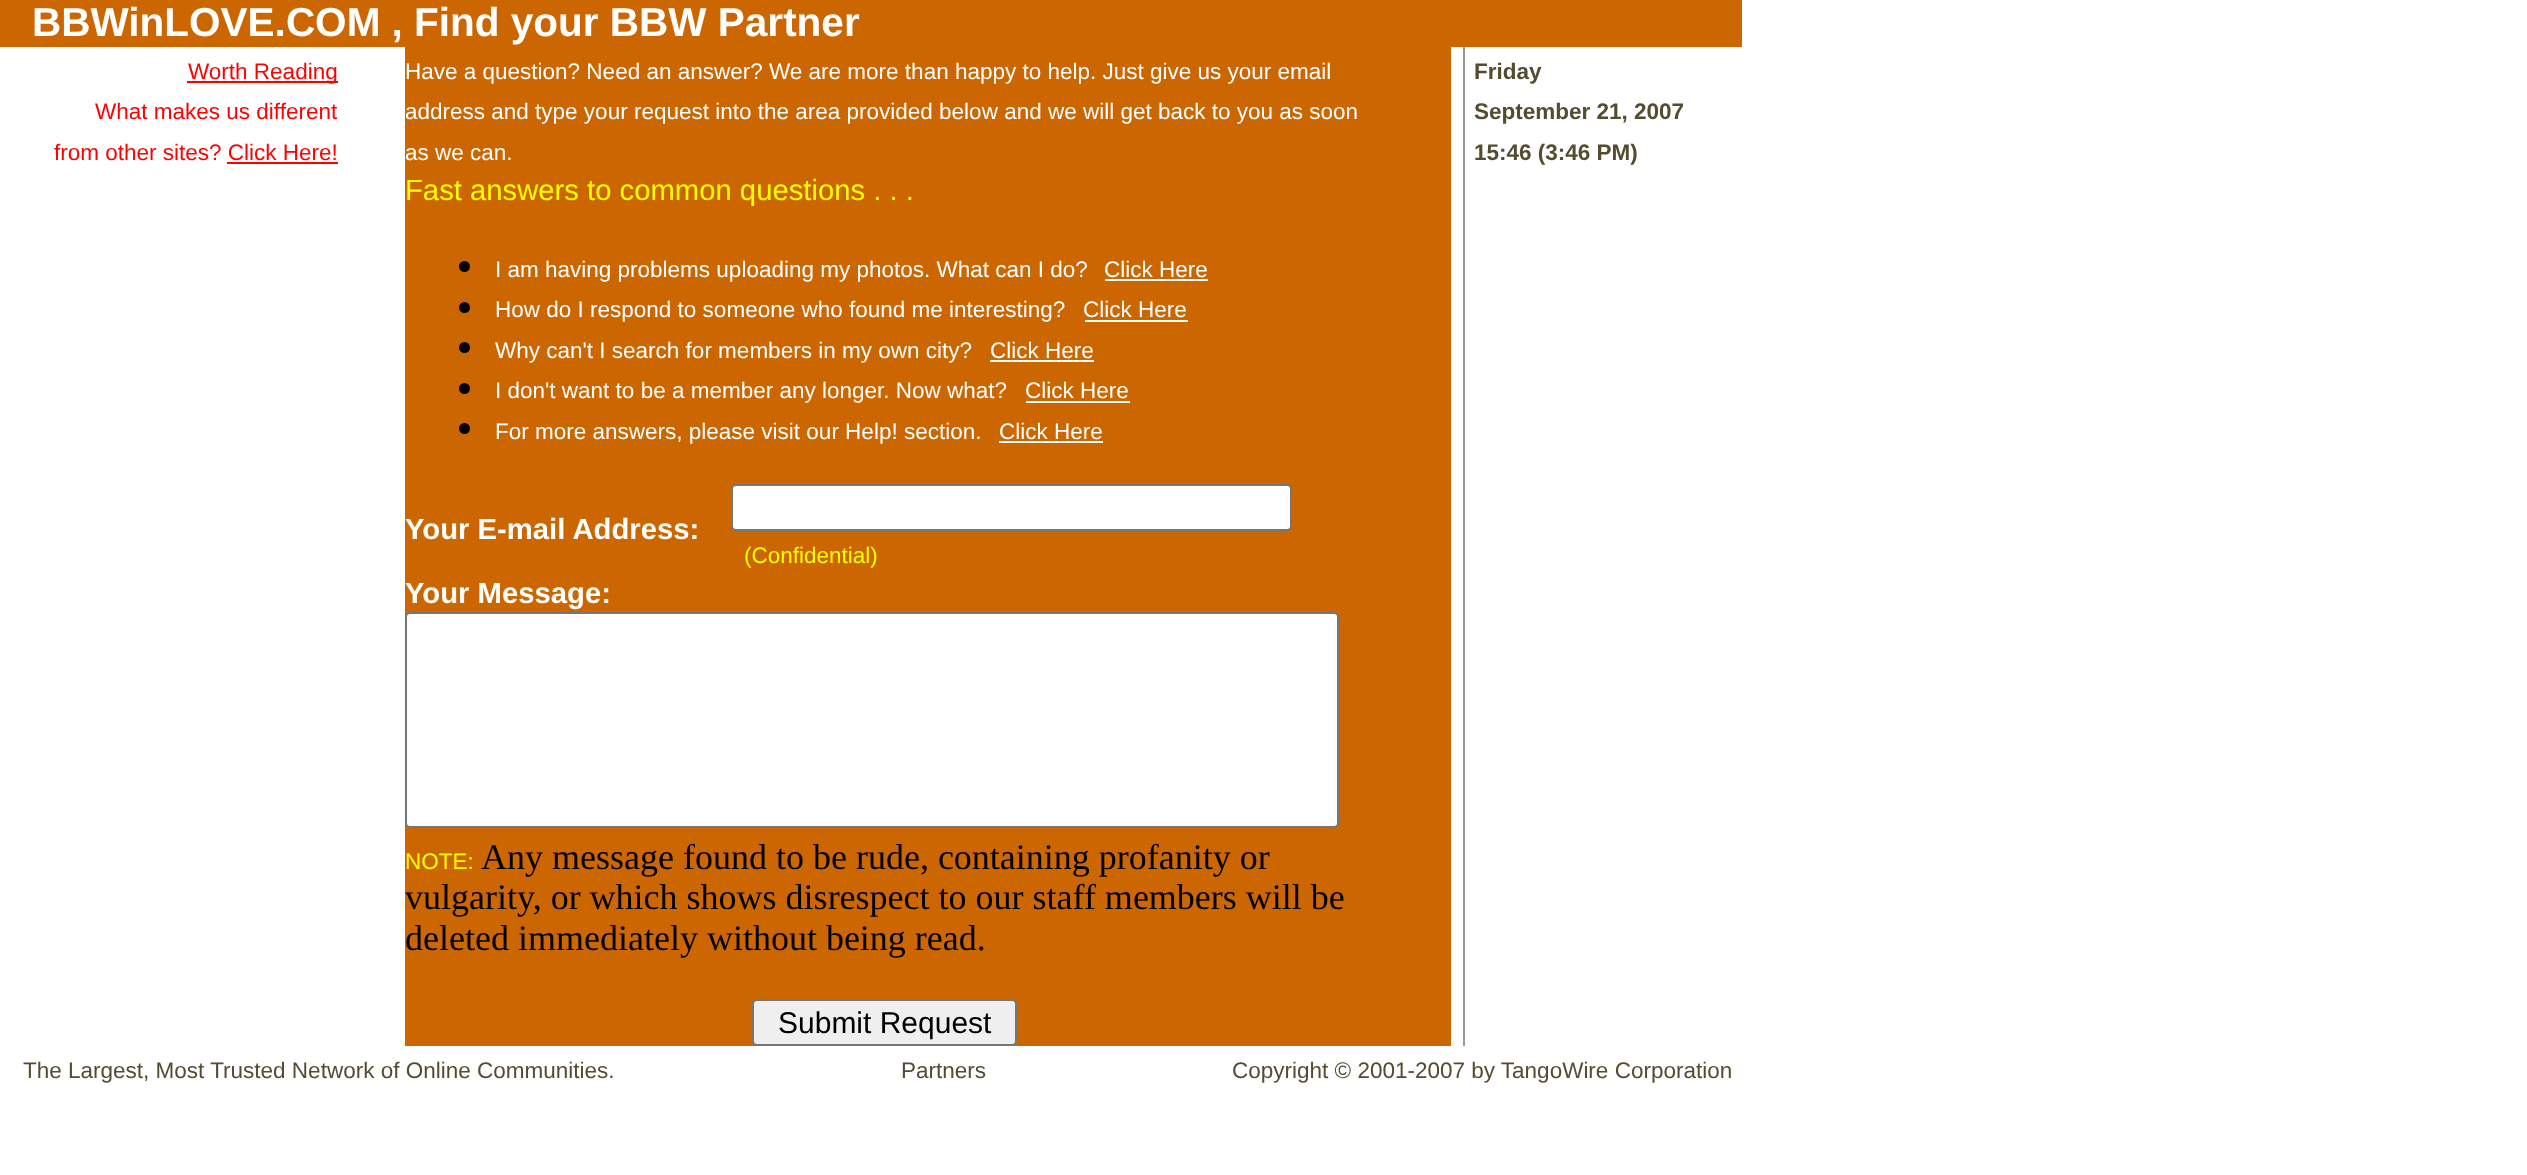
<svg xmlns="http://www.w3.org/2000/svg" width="2527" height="1175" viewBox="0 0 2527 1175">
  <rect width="100%" height="100%" fill="#fff"/>
  <path d="M0 0h1742v47H0z" fill="#c60"/>
  <path d="M187 81h151v2H187z" fill="#f00"/>
  <path d="M227 162h111v2H227z" fill="#f00"/>
  <path d="M405 47h1046v999H405z" fill="#c60"/>
  <circle cx="464.5" cy="266.5" r="5.5" fill="#000"/>
  <path d="M1105 279h103v2H1105z" fill="#fff"/>
  <circle cx="464.5" cy="307.5" r="5.5" fill="#000"/>
  <path d="M1085 320h103v2H1085z" fill="#fff"/>
  <circle cx="464.5" cy="347.5" r="5.5" fill="#000"/>
  <path d="M990 360h104v2H990z" fill="#fff"/>
  <circle cx="464.5" cy="388.5" r="5.5" fill="#000"/>
  <path d="M1026 401h104v2H1026z" fill="#fff"/>
  <circle cx="464.5" cy="428.5" r="5.5" fill="#000"/>
  <path d="M999 441h104v2H999z" fill="#fff"/>
  <rect x="732" y="485" width="559" height="45" rx="4" fill="#fff" stroke="#767676" stroke-width="2"/>
  <rect x="406" y="613" width="932" height="214" rx="4" fill="#fff" stroke="#767676" stroke-width="2"/>
  <rect x="753" y="1000" width="263" height="45" rx="4" fill="#efefef" stroke="#767676" stroke-width="2"/>
  <path d="M1463 47h2v999H1463z" fill="#999"/>
  <text x="32" y="36" font-family="Liberation Sans" font-size="40.5" font-weight="bold" fill="#fff">BBWinLOVE.COM , Find your BBW Partner</text>
  <g font-family="Liberation Sans" font-size="22.5" fill="#f00">
    <text x="188" y="79">Worth Reading</text>
    <text x="95" y="119">What makes us different</text>
    <text x="54" y="160">from other sites? Click Here!</text>
  </g>
  <g font-family="Liberation Sans" font-size="22.5" fill="#fff">
    <text x="405" y="79">Have a question? Need an answer? We are more than happy to help. Just give us your email</text>
    <text x="405" y="119">address and type your request into the area provided below and we will get back to you as soon</text>
    <text x="405" y="160">as we can.</text>
  </g>
  <text x="405" y="200" font-family="Liberation Sans" font-size="29.25" fill="#ff0">Fast answers to common questions . . .</text>
  <g font-family="Liberation Sans" font-size="22.5" fill="#fff">
    <text x="495" y="277">I am having problems uploading my photos. What can I do?</text>
    <text x="1104" y="277">Click Here</text>
    <text x="495" y="317">How do I respond to someone who found me interesting?</text>
    <text x="1083" y="317">Click Here</text>
    <text x="495" y="358">Why can't I search for members in my own city?</text>
    <text x="990" y="358">Click Here</text>
    <text x="495" y="398">I don't want to be a member any longer. Now what?</text>
    <text x="1025" y="398">Click Here</text>
    <text x="495" y="439">For more answers, please visit our Help! section.</text>
    <text x="999" y="439">Click Here</text>
  </g>
  <text x="405" y="539" font-family="Liberation Sans" font-size="29.25" font-weight="bold" fill="#fff">Your E-mail Address:</text>
  <text x="744" y="563" font-family="Liberation Sans" font-size="22.5" fill="#ff0">(Confidential)</text>
  <text x="405" y="603" font-family="Liberation Sans" font-size="29.25" font-weight="bold" fill="#fff">Your Message:</text>
  <text x="405" y="869" font-family="Liberation Sans" font-size="22.5" fill="#ff0">NOTE:</text>
  <g font-family="Liberation Serif" font-size="36" fill="#000">
    <text x="481" y="869">Any message found to be rude, containing profanity or</text>
    <text x="405" y="909">vulgarity, or which shows disrespect to our staff members will be</text>
    <text x="405" y="950">deleted immediately without being read.</text>
  </g>
  <text x="778" y="1033" font-family="Liberation Sans" font-size="30" fill="#000">Submit Request</text>
  <g font-family="Liberation Sans" font-size="22.5" font-weight="bold" fill="#544b31">
    <text x="1474" y="79">Friday</text>
    <text x="1474" y="119">September 21, 2007</text>
    <text x="1474" y="160">15:46 (3:46 PM)</text>
  </g>
  <g font-family="Liberation Sans" font-size="22.5" fill="#544b31">
    <text x="23" y="1078">The Largest, Most Trusted Network of Online Communities.</text>
    <text x="901" y="1078">Partners</text>
    <text x="1232" y="1078">Copyright © 2001-2007 by TangoWire Corporation</text>
  </g>
</svg>
